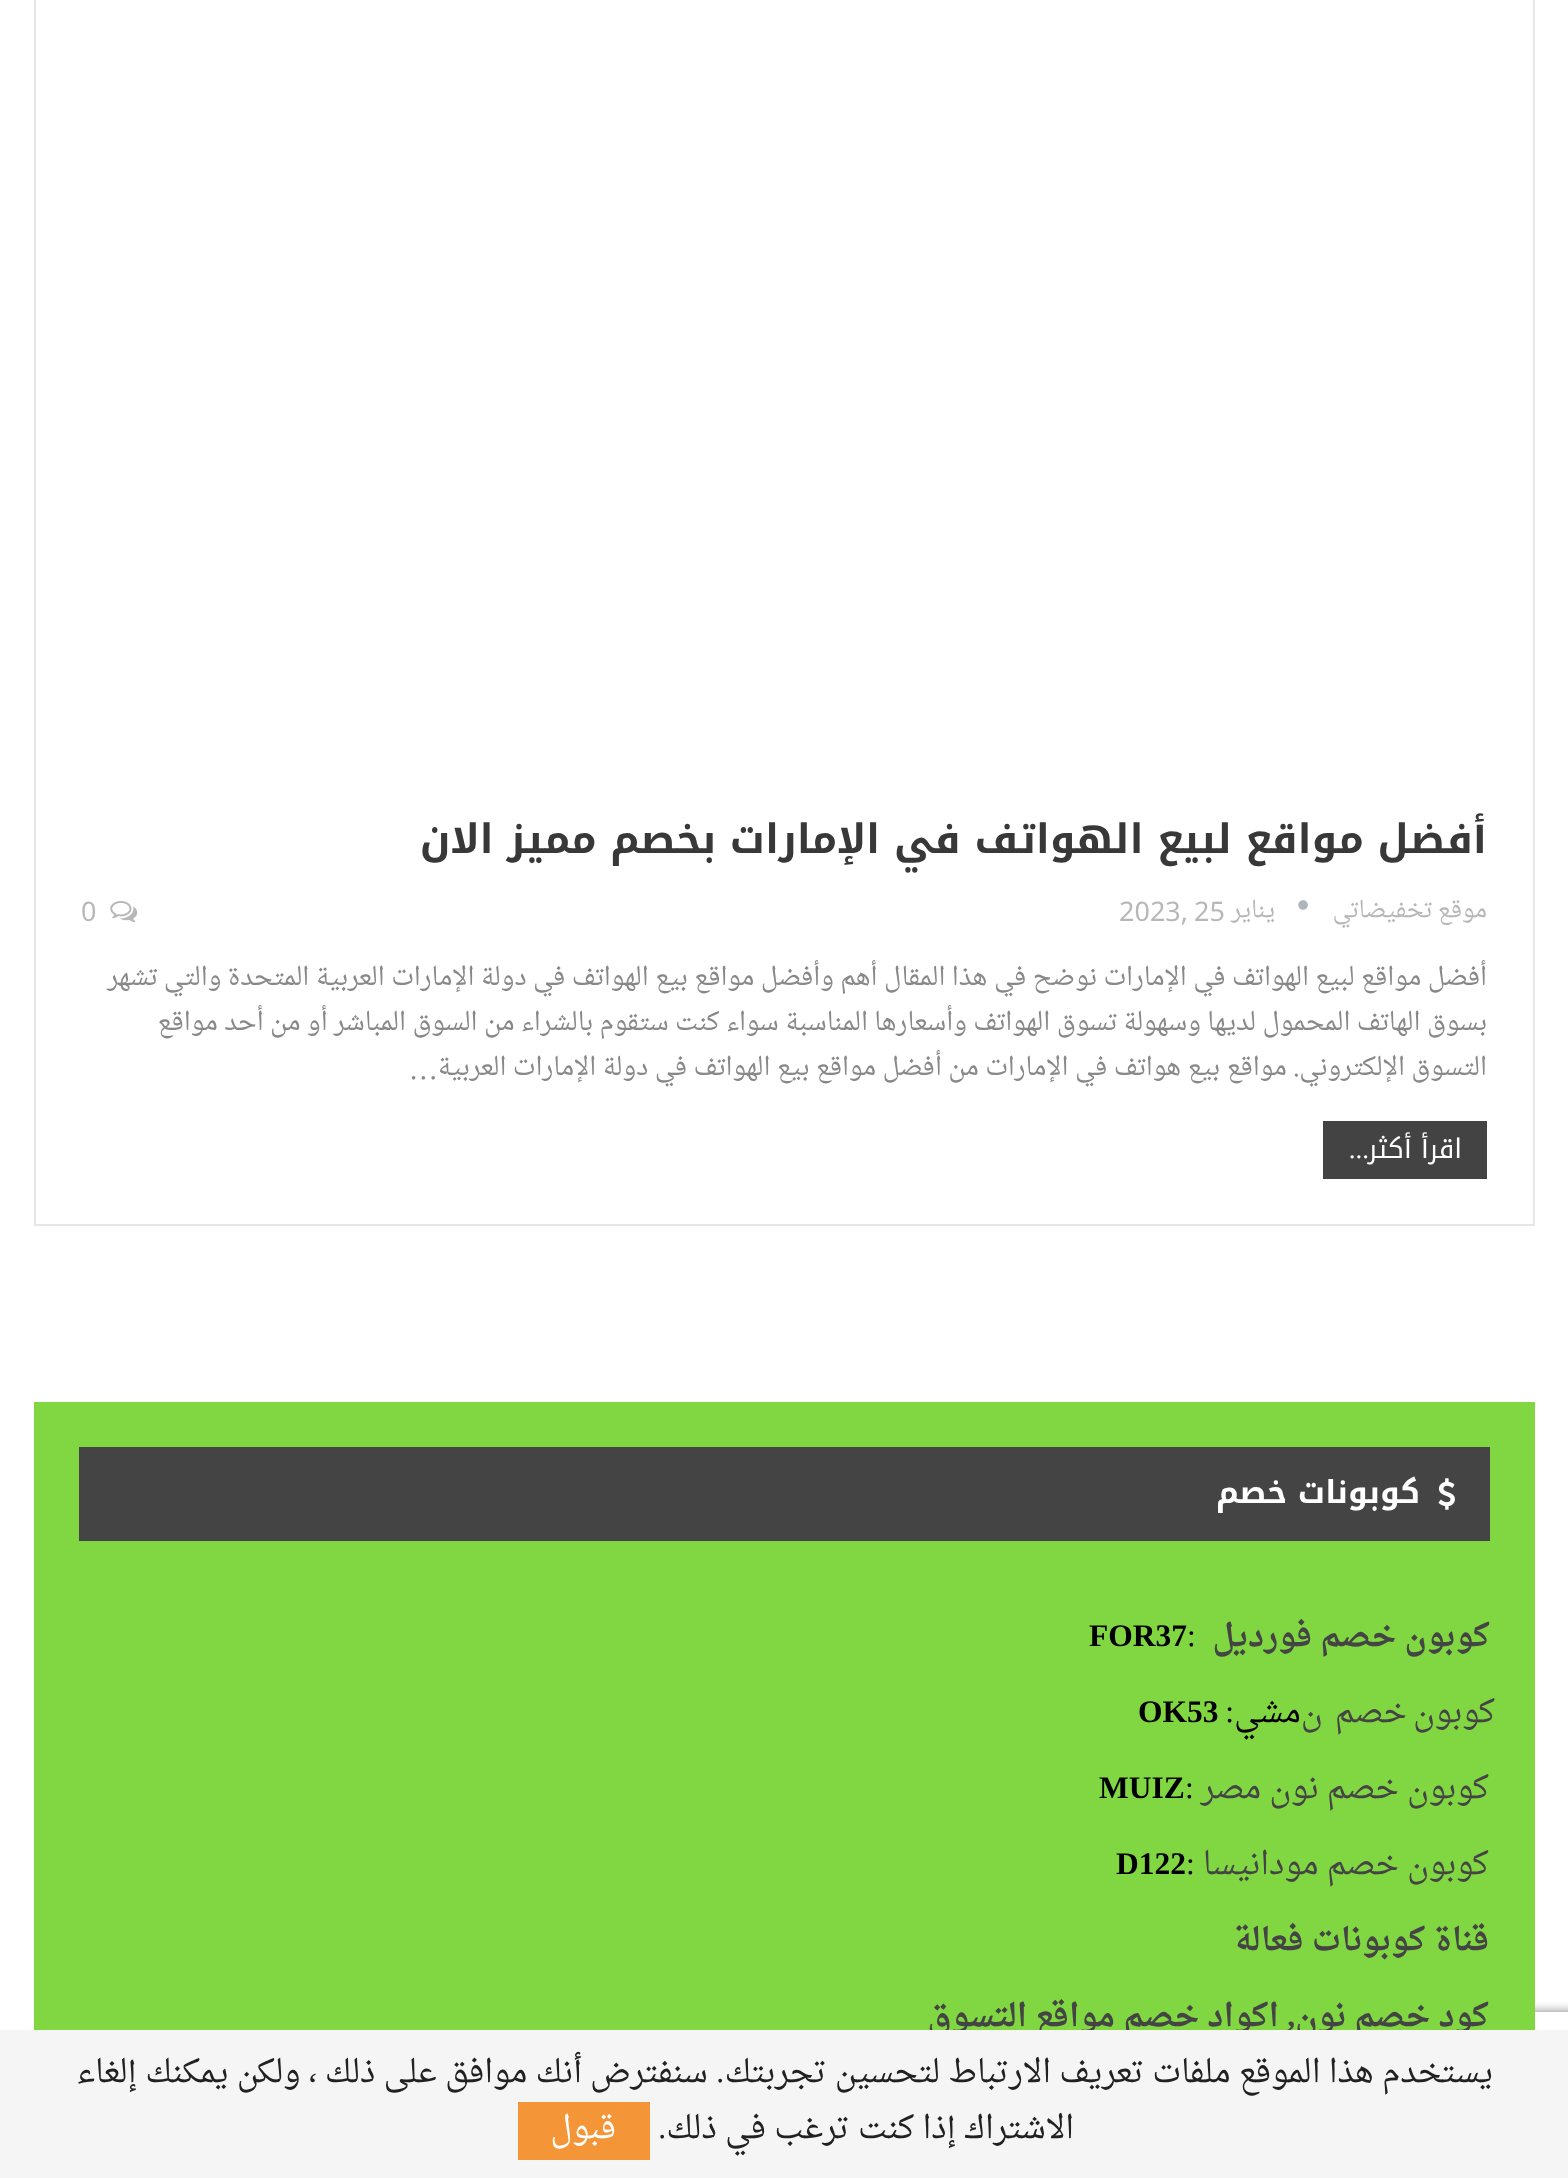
<svg xmlns="http://www.w3.org/2000/svg" width="1568" height="2178" viewBox="0 0 1568 2178">
  <defs>
    <clipPath id="clip1"><path d="M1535 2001h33v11H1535z"/></clipPath>
  </defs>
  <rect width="100%" height="100%" fill="#fff"/>
  <path d="M35 -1h1499v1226H35z" fill="none" stroke="#e6e6e6" stroke-width="2"/>
  <image x="1298" y="900" width="10" height="10" href="img/1.png"/>
  <image x="110" y="901" width="28" height="22" href="img/2.png"/>
  <path d="M1323 1121h164v58H1323z" fill="#434343"/>
  <g clip-path="url(#clip1)">
    <rect x="1411" y="2012" width="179" height="135" rx="5" fill="#808080" filter="blur(5.5px)"/>
  </g>
  <path d="M34 1402h1501v628H34z" fill="#81d742"/>
  <path d="M79 1447h1411v94H79z" fill="#444"/>
  <image x="1438" y="1478" width="17" height="32" href="img/3.png"/>
  <text x="1487" y="853" font-family="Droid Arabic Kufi" font-size="40.5" font-weight="bold" direction="rtl" fill="#383838">أفضل مواقع لبيع الهواتف في الإمارات بخصم مميز الان</text>
  <g font-family="Noto Naskh Arabic UI" font-size="27" direction="rtl" fill="#b7b7b7">
    <text x="1487" y="921">موقع تخفيضاتي</text>
    <text x="1275" y="921">يناير</text>
  </g>
  <g font-family="Noto Naskh Arabic UI" font-size="27" fill="#b7b7b7">
    <text x="1119" y="921">2023, 25</text>
    <text x="81" y="921">0</text>
  </g>
  <g font-family="Noto Naskh Arabic UI" font-size="29.25" direction="rtl" fill="#888">
    <text x="1487" y="989">أفضل مواقع لبيع الهواتف في الإمارات نوضح في هذا المقال أهم وأفضل مواقع بيع الهواتف في دولة الإمارات العربية المتحدة والتي تشهر</text>
    <text x="1487" y="1034">بسوق الهاتف المحمول لديها وسهولة تسوق الهواتف وأسعارها المناسبة سواء كنت ستقوم بالشراء من السوق المباشر أو من أحد مواقع</text>
    <text x="1487" y="1079">التسوق الإلكتروني. مواقع بيع هواتف في الإمارات من أفضل مواقع بيع الهواتف في دولة الإمارات العربية</text>
  </g>
  <text x="438" y="1079" font-family="Liberation Serif" font-size="29.25" direction="rtl" fill="#888">…</text>
  <text x="1462" y="1158" font-family="Droid Arabic Kufi" font-size="27" direction="rtl" fill="#fff">اقرأ أكثر</text>
  <text x="1369" y="1158" font-family="Liberation Serif" font-size="27" direction="rtl" fill="#fff">...</text>
  <text x="1420" y="1503" font-family="Droid Arabic Kufi" font-size="31.5" font-weight="bold" direction="rtl" fill="#fff">كوبونات خصم</text>
  <text x="1490" y="1646" font-family="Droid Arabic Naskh" font-size="31.5" font-weight="bold" direction="rtl" fill="#444">كوبون خصم فورديل</text>
  <text x="1187" y="1646" font-family="Liberation Serif" font-size="31.5" fill="#000">:</text>
  <text x="1089" y="1646" font-family="Liberation Serif" font-size="31.5" font-weight="bold" fill="#000">FOR37</text>
  <text x="1495" y="1722" word-spacing="-2" font-family="Droid Arabic Naskh" font-size="31.5" direction="rtl" fill="#444" xml:space="preserve">كوبون خصم  ن</text>
  <text x="1301" y="1722" font-family="Droid Arabic Naskh" font-size="31.5" direction="rtl" fill="#000">مشي</text>
  <text x="1234" y="1722" font-family="Liberation Serif" font-size="31.5" direction="rtl" fill="#000">:</text>
  <text x="1138" y="1722" font-family="Liberation Serif" font-size="31.5" font-weight="bold" fill="#000">OK53</text>
  <text x="1489" y="1798" font-family="Droid Arabic Naskh" font-size="31.5" direction="rtl" fill="#444">كوبون خصم نون مصر</text>
  <text x="1185" y="1798" font-family="Liberation Serif" font-size="31.5" fill="#000">:</text>
  <text x="1099" y="1798" font-family="Liberation Serif" font-size="31.5" font-weight="bold" fill="#000">MUIZ</text>
  <text x="1489" y="1874" font-family="Droid Arabic Naskh" font-size="31.5" direction="rtl" fill="#444">كوبون خصم مودانيسا</text>
  <text x="1186" y="1874" font-family="Liberation Serif" font-size="31.5" fill="#000">:</text>
  <text x="1116" y="1874" font-family="Liberation Serif" font-size="31.5" font-weight="bold" fill="#000">D122</text>
  <g font-family="Droid Arabic Naskh" font-size="31.5" font-weight="bold" direction="rtl" fill="#444">
    <text x="1489" y="1950">قناة كوبونات فعالة</text>
    <text x="1489" y="2026">كود خصم نون</text>
  </g>
  <text x="1295" y="2026" font-family="Liberation Serif" font-size="31.5" font-weight="bold" direction="rtl" fill="#444">,</text>
  <text x="1279" y="2026" font-family="Droid Arabic Naskh" font-size="31.5" font-weight="bold" direction="rtl" fill="#444">اكواد خصم مواقع التسوق</text>
  <path d="M0 2030h1568v148H0z" fill="#f5f5f5"/>
  <text x="1493" y="2082" font-family="Droid Arabic Naskh" font-size="31.5" direction="rtl" fill="#212121">يستخدم هذا الموقع ملفات تعريف الارتباط لتحسين تجربتك</text>
  <text x="724" y="2082" font-family="Liberation Serif" font-size="31.5" direction="rtl" fill="#212121">.</text>
  <g font-family="Droid Arabic Naskh" font-size="31.5" direction="rtl" fill="#212121">
    <text x="708" y="2082">سنفترض أنك موافق على ذلك ، ولكن يمكنك إلغاء</text>
    <text x="1074" y="2138">الاشتراك إذا كنت ترغب في ذلك</text>
  </g>
  <text x="666" y="2138" font-family="Liberation Serif" font-size="31.5" direction="rtl" fill="#212121">.</text>
  <path d="M518 2102h132v58H518z" fill="#f49638"/>
  <text x="616" y="2138" font-family="Droid Arabic Naskh" font-size="31.5" direction="rtl" fill="#fff">قبول</text>
</svg>
